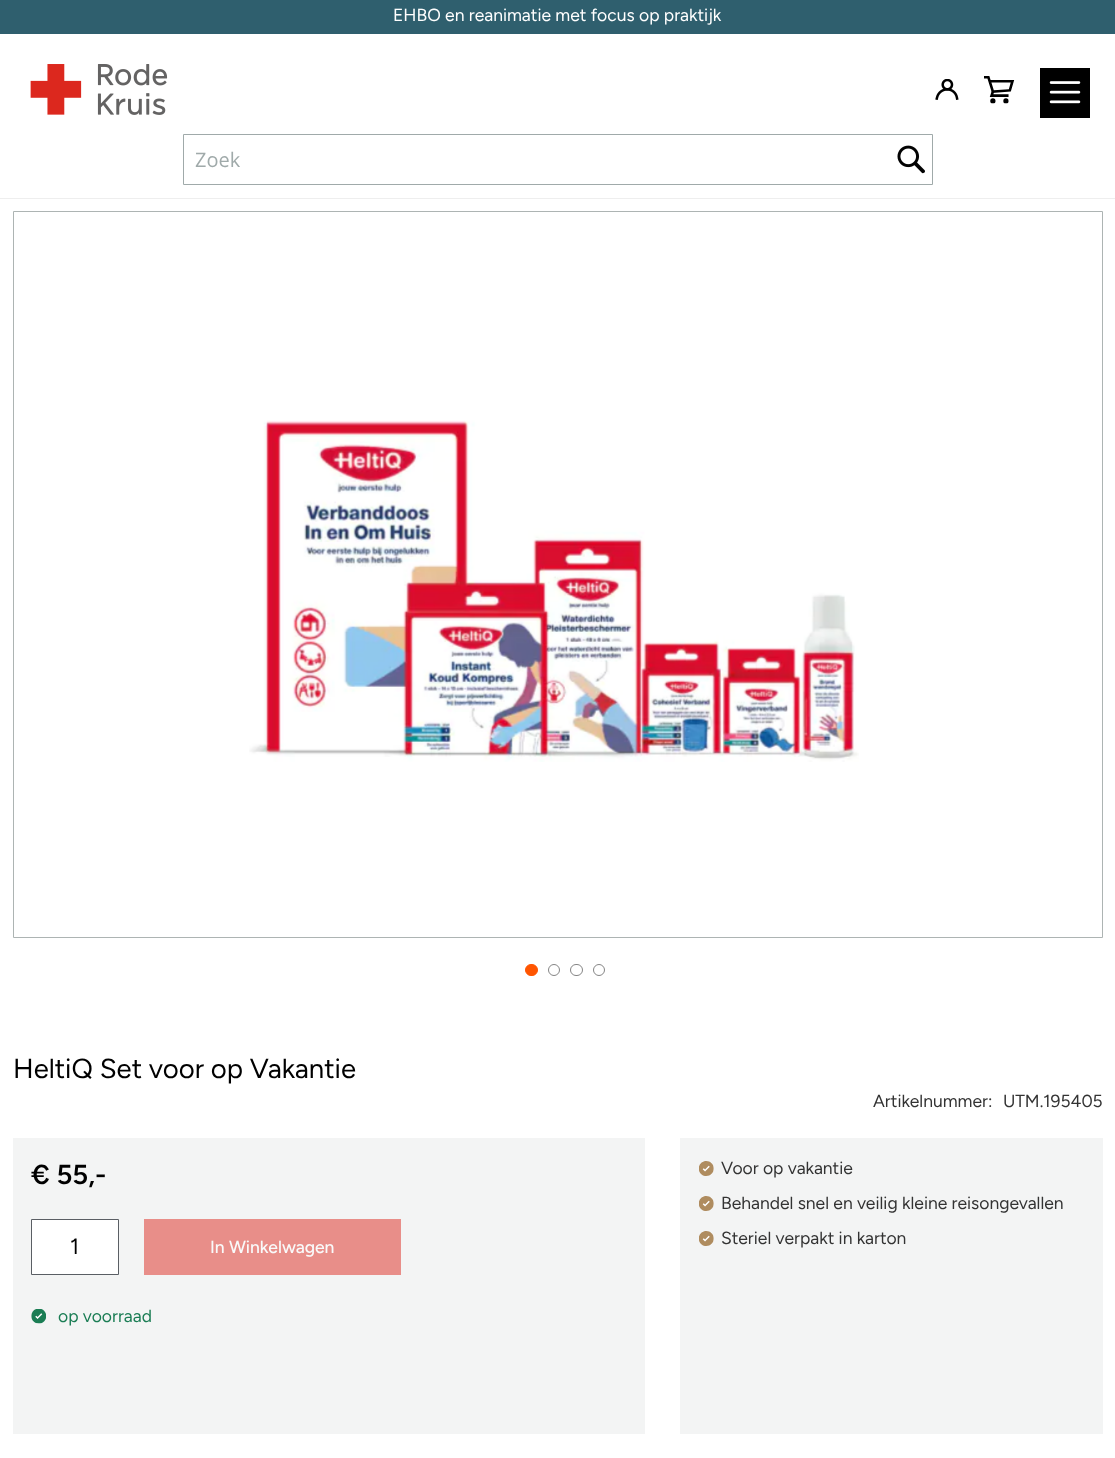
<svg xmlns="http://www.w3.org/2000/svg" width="1115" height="1458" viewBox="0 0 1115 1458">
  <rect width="100%" height="100%" fill="#fff"/>
  <path d="M0 0h1115v34H0z" fill="#2f5f6e"/>
  <path d="M0 198h1115v1H0z" fill="#eee"/>
  <image x="30" y="64" width="138" height="51" href="img/1.png"/>
  <image x="935" y="79" width="24" height="21" href="img/2.png"/>
  <image x="984" y="76" width="31" height="28" href="img/3.png"/>
  <path d="M1040 68h50v50H1040z" fill="#000"/>
  <image x="1049" y="81" width="32" height="23" href="img/4.png"/>
  <path d="M183.5 134.5h749v50H183.5z" fill="none" stroke="#a0aaaa"/>
  <image x="897" y="145" width="28" height="29" href="img/5.png"/>
  <path d="M13.5 211.5h1089v726H13.5z" fill="none" stroke="#adb4b3"/>
  <image x="249" y="420" width="610" height="342" href="img/6.png"/>
  <rect x="525.5" y="964.5" width="12" height="11" rx="5.5" fill="#ff5501" stroke="#ff5501"/>
  <circle cx="554" cy="970" r="5.5" fill="none" stroke="#858585"/>
  <rect x="570.5" y="964.5" width="12" height="11" rx="5.5" fill="none" stroke="#858585"/>
  <circle cx="599" cy="970" r="5.5" fill="none" stroke="#858585"/>
  <path d="M13 1138h632v296H13z" fill="#f3f4f4"/>
  <path d="M31.5 1219.5h87v55H31.5z" fill="#fff" stroke="#5a5e64"/>
  <path d="M144 1219h257v56H144z" fill="#e88e89"/>
  <image x="31" y="1309" width="15" height="15" href="img/7.png"/>
  <path d="M680 1138h423v296H680z" fill="#f3f4f4"/>
  <image x="699" y="1161" width="15" height="15" href="img/8.png"/>
  <image x="699" y="1196" width="15" height="15" href="img/8.png"/>
  <image x="699" y="1231" width="15" height="15" href="img/8.png"/>
  <text x="393" y="21" font-family="Figtree" font-size="17.5" fill="#fff">EHBO en reanimatie met focus op praktijk</text>
  <text x="195" y="167" font-family="Open Sans" font-size="20" fill="#a0aaaa">Zoek</text>
  <text x="13" y="1078" font-family="Figtree" font-size="27.5" fill="#000">HeltiQ Set voor op Vakantie</text>
  <g font-family="Figtree" font-size="17.5" fill="#333">
    <text x="873" y="1107">Artikelnummer:</text>
    <text x="1003" y="1107">UTM.195405</text>
  </g>
  <text x="31" y="1184" font-family="Figtree" font-size="27.5" font-weight="600" fill="#000">€ 55,-</text>
  <text x="70" y="1254" font-family="Figtree" font-size="22" fill="#000">1</text>
  <text x="210" y="1253" font-family="Figtree" font-size="17.5" font-weight="500" fill="#f9fafa">In Winkelwagen</text>
  <text x="58" y="1322" font-family="Figtree" font-size="17.5" fill="#1a7d54">op voorraad</text>
  <g font-family="Figtree" font-size="17.5" fill="#333">
    <text x="721" y="1174">Voor op vakantie</text>
    <text x="721" y="1209">Behandel snel en veilig kleine reisongevallen</text>
    <text x="721" y="1244">Steriel verpakt in karton</text>
  </g>
</svg>
